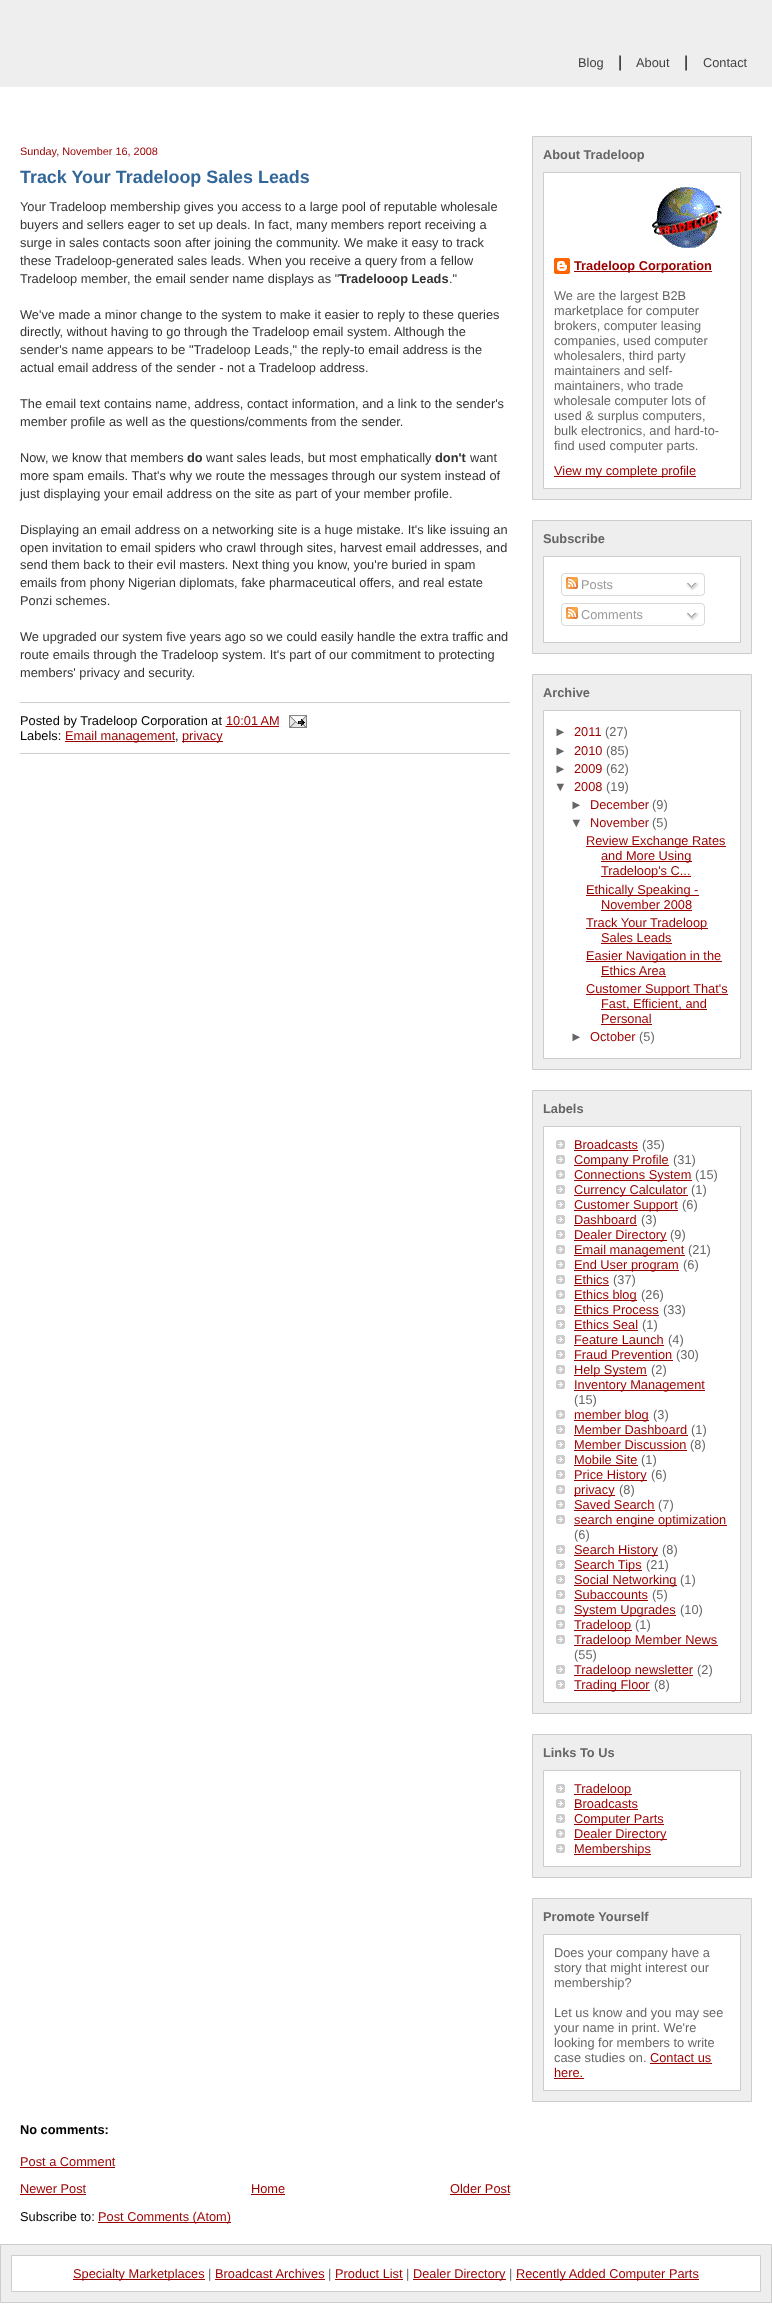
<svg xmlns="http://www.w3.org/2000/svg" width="772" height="2321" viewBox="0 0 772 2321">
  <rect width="100%" height="100%" fill="#fff"/>
  <path d="M0 0h772v87H0z" fill="#eee"/>
  <path d="M20 702h490v1H20z" fill="#ccc"/>
  <path d="M20 753h490v1H20z" fill="#ccc"/>
  <path d="M225.5 726.5H279.5" fill="none" stroke="#900" stroke-dasharray="1 1"/>
  <path d="M226 726h53v1H226z" fill="#900"/>
  <image x="289" y="715" width="18" height="13" href="img/1.png"/>
  <path d="M65 741h110v1H65z" fill="#900"/>
  <path d="M182 741h41v1H182z" fill="#900"/>
  <path d="M20 2167h95v1H20z" fill="#900"/>
  <path d="M20 2194h66v1H20z" fill="#900"/>
  <path d="M251 2194h34v1H251z" fill="#900"/>
  <path d="M450 2194h60v1H450z" fill="#900"/>
  <path d="M98 2222h133v1H98z" fill="#900"/>
  <path d="M532.5 136.5h219v363H532.5z" fill="#eee" stroke="#ccc"/>
  <path d="M543.5 172.5h197v316H543.5z" fill="#fff" stroke="#ccc"/>
  <image x="652" y="187" width="70" height="61" href="img/2.png"/>
  <image x="554" y="258" width="16" height="16" href="img/3.png"/>
  <path d="M574 271h138v1H574z" fill="#900"/>
  <path d="M554 476h142v1H554z" fill="#900"/>
  <path d="M532.5 520.5h219v133H532.5z" fill="#eee" stroke="#ccc"/>
  <path d="M543.5 556.5h197v86H543.5z" fill="#fff" stroke="#ccc"/>
  <image x="561" y="573" width="144" height="20" href="img/4.png"/>
  <image x="566" y="577" width="12" height="12" href="img/5.png"/>
  <image x="686" y="582" width="13" height="9" href="img/6.png"/>
  <image x="561" y="593" width="144" height="3" href="img/7.png"/>
  <image x="561" y="603" width="144" height="20" href="img/4.png"/>
  <image x="566" y="607" width="12" height="12" href="img/5.png"/>
  <image x="686" y="612" width="13" height="9" href="img/6.png"/>
  <image x="561" y="623" width="144" height="3" href="img/7.png"/>
  <path d="M532.5 674.5h219v395H532.5z" fill="#eee" stroke="#ccc"/>
  <path d="M543.5 710.5h197v348H543.5z" fill="#fff" stroke="#ccc"/>
  <path d="M586 846h140v1H586z" fill="#900"/>
  <path d="M601 861h91v1H601z" fill="#900"/>
  <path d="M601 876h90v1H601z" fill="#900"/>
  <path d="M586 895h113v1H586z" fill="#900"/>
  <path d="M601 910h91v1H601z" fill="#900"/>
  <path d="M586 928h122v1H586z" fill="#900"/>
  <path d="M601 943h71v1H601z" fill="#900"/>
  <path d="M586 961h136v1H586z" fill="#900"/>
  <path d="M601 976h65v1H601z" fill="#900"/>
  <path d="M586 994h142v1H586z" fill="#900"/>
  <path d="M601 1009h106v1H601z" fill="#900"/>
  <path d="M601 1024h51v1H601z" fill="#900"/>
  <path d="M532.5 1090.5h219v623H532.5z" fill="#eee" stroke="#ccc"/>
  <path d="M543.5 1126.5h197v576H543.5z" fill="#fff" stroke="#ccc"/>
  <image x="556" y="1140" width="9" height="9" href="img/8.png"/>
  <path d="M574 1150h64v1H574z" fill="#900"/>
  <image x="556" y="1155" width="9" height="9" href="img/8.png"/>
  <path d="M574 1165h95v1H574z" fill="#900"/>
  <image x="556" y="1170" width="9" height="9" href="img/8.png"/>
  <path d="M574 1180h118v1H574z" fill="#900"/>
  <image x="556" y="1185" width="9" height="9" href="img/8.png"/>
  <path d="M574 1195h114v1H574z" fill="#900"/>
  <image x="556" y="1200" width="9" height="9" href="img/8.png"/>
  <path d="M574 1210h104v1H574z" fill="#900"/>
  <image x="556" y="1215" width="9" height="9" href="img/8.png"/>
  <path d="M574 1225h63v1H574z" fill="#900"/>
  <image x="556" y="1230" width="9" height="9" href="img/8.png"/>
  <path d="M574 1240h93v1H574z" fill="#900"/>
  <image x="556" y="1245" width="9" height="9" href="img/8.png"/>
  <path d="M574 1255h111v1H574z" fill="#900"/>
  <image x="556" y="1260" width="9" height="9" href="img/8.png"/>
  <path d="M574 1270h105v1H574z" fill="#900"/>
  <image x="556" y="1275" width="9" height="9" href="img/8.png"/>
  <path d="M574 1285h35v1H574z" fill="#900"/>
  <image x="556" y="1290" width="9" height="9" href="img/8.png"/>
  <path d="M574 1300h63v1H574z" fill="#900"/>
  <image x="556" y="1305" width="9" height="9" href="img/8.png"/>
  <path d="M574 1315h85v1H574z" fill="#900"/>
  <image x="556" y="1320" width="9" height="9" href="img/8.png"/>
  <path d="M574 1330h64v1H574z" fill="#900"/>
  <image x="556" y="1335" width="9" height="9" href="img/8.png"/>
  <path d="M574 1345h90v1H574z" fill="#900"/>
  <image x="556" y="1350" width="9" height="9" href="img/8.png"/>
  <path d="M574 1360h99v1H574z" fill="#900"/>
  <image x="556" y="1365" width="9" height="9" href="img/8.png"/>
  <path d="M574 1375h73v1H574z" fill="#900"/>
  <image x="556" y="1380" width="9" height="9" href="img/8.png"/>
  <path d="M574 1390h131v1H574z" fill="#900"/>
  <image x="556" y="1410" width="9" height="9" href="img/8.png"/>
  <path d="M574 1420h75v1H574z" fill="#900"/>
  <image x="556" y="1425" width="9" height="9" href="img/8.png"/>
  <path d="M574 1435h114v1H574z" fill="#900"/>
  <image x="556" y="1440" width="9" height="9" href="img/8.png"/>
  <path d="M574 1450h113v1H574z" fill="#900"/>
  <image x="556" y="1455" width="9" height="9" href="img/8.png"/>
  <path d="M574 1465h64v1H574z" fill="#900"/>
  <image x="556" y="1470" width="9" height="9" href="img/8.png"/>
  <path d="M574 1480h73v1H574z" fill="#900"/>
  <image x="556" y="1485" width="9" height="9" href="img/8.png"/>
  <path d="M574 1495h41v1H574z" fill="#900"/>
  <image x="556" y="1500" width="9" height="9" href="img/8.png"/>
  <path d="M574 1510h81v1H574z" fill="#900"/>
  <image x="556" y="1515" width="9" height="9" href="img/8.png"/>
  <path d="M574 1525h153v1H574z" fill="#900"/>
  <image x="556" y="1545" width="9" height="9" href="img/8.png"/>
  <path d="M574 1555h84v1H574z" fill="#900"/>
  <image x="556" y="1560" width="9" height="9" href="img/8.png"/>
  <path d="M574 1570h68v1H574z" fill="#900"/>
  <image x="556" y="1575" width="9" height="9" href="img/8.png"/>
  <path d="M574 1585h103v1H574z" fill="#900"/>
  <image x="556" y="1590" width="9" height="9" href="img/8.png"/>
  <path d="M574 1600h74v1H574z" fill="#900"/>
  <image x="556" y="1605" width="9" height="9" href="img/8.png"/>
  <path d="M574 1615h102v1H574z" fill="#900"/>
  <image x="556" y="1620" width="9" height="9" href="img/8.png"/>
  <path d="M574 1630h58v1H574z" fill="#900"/>
  <image x="556" y="1635" width="9" height="9" href="img/8.png"/>
  <path d="M574 1645h144v1H574z" fill="#900"/>
  <image x="556" y="1665" width="9" height="9" href="img/8.png"/>
  <path d="M574 1675h119v1H574z" fill="#900"/>
  <image x="556" y="1680" width="9" height="9" href="img/8.png"/>
  <path d="M574 1690h76v1H574z" fill="#900"/>
  <path d="M532.5 1734.5h219v143H532.5z" fill="#eee" stroke="#ccc"/>
  <path d="M543.5 1770.5h197v96H543.5z" fill="#fff" stroke="#ccc"/>
  <image x="556" y="1784" width="9" height="9" href="img/8.png"/>
  <path d="M574 1794h58v1H574z" fill="#900"/>
  <image x="556" y="1799" width="9" height="9" href="img/8.png"/>
  <path d="M574 1809h64v1H574z" fill="#900"/>
  <image x="556" y="1814" width="9" height="9" href="img/8.png"/>
  <path d="M574 1824h90v1H574z" fill="#900"/>
  <image x="556" y="1829" width="9" height="9" href="img/8.png"/>
  <path d="M574 1839h93v1H574z" fill="#900"/>
  <image x="556" y="1844" width="9" height="9" href="img/8.png"/>
  <path d="M574 1854h77v1H574z" fill="#900"/>
  <path d="M532.5 1898.5h219v203H532.5z" fill="#eee" stroke="#ccc"/>
  <path d="M543.5 1934.5h197v156H543.5z" fill="#fff" stroke="#ccc"/>
  <path d="M650 2063h62v1H650z" fill="#900"/>
  <path d="M554 2078h30v1H554z" fill="#900"/>
  <path d="M0.5 2244.5h771v58H0.5z" fill="#eee" stroke="#ccc"/>
  <path d="M11.5 2255.5h749v36H11.5z" fill="#fff" stroke="#ccc"/>
  <path d="M73 2279h132v1H73z" fill="#900"/>
  <path d="M215 2279h110v1H215z" fill="#900"/>
  <path d="M335 2279h68v1H335z" fill="#900"/>
  <path d="M413 2279h93v1H413z" fill="#900"/>
  <path d="M516 2279h183v1H516z" fill="#900"/>
  <text x="578" y="67" font-family="Liberation Sans" font-size="12.8" fill="#424242">Blog</text>
  <text x="618" y="67" font-family="Liberation Sans" font-size="16" fill="#000">|</text>
  <text x="636" y="67" font-family="Liberation Sans" font-size="12.8" fill="#424242">About</text>
  <text x="684" y="67" font-family="Liberation Sans" font-size="16" fill="#000">|</text>
  <text x="703" y="67" font-family="Liberation Sans" font-size="12.8" fill="#424242">Contact</text>
  <text x="20" y="155" font-family="Liberation Sans" font-size="10.9" fill="#900">Sunday, November 16, 2008</text>
  <text x="20" y="183" font-family="Liberation Sans" font-size="17.9" font-weight="bold" fill="#369">Track Your Tradeloop Sales Leads</text>
  <g font-family="Liberation Sans" font-size="12.8" fill="#333">
    <text x="20" y="211">Your Tradeloop membership gives you access to a large pool of reputable wholesale</text>
    <text x="20" y="229">buyers and sellers eager to set up deals. In fact, many members report receiving a</text>
    <text x="20" y="247">surge in sales contacts soon after joining the community. We make it easy to track</text>
    <text x="20" y="265">these Tradeloop-generated sales leads. When you receive a query from a fellow</text>
    <text x="20" y="283">Tradeloop member, the email sender name displays as "</text>
  </g>
  <text x="339" y="283" font-family="Liberation Sans" font-size="12.8" font-weight="bold" fill="#333">Tradelooop Leads</text>
  <g font-family="Liberation Sans" font-size="12.8" fill="#333">
    <text x="449" y="283">."</text>
    <text x="20" y="319">We've made a minor change to the system to make it easier to reply to these queries</text>
    <text x="20" y="336">directly, without having to go through the Tradeloop email system. Although the</text>
    <text x="20" y="354">sender's name appears to be "Tradeloop Leads," the reply-to email address is the</text>
    <text x="20" y="372">actual email address of the sender - not a Tradeloop address.</text>
    <text x="20" y="408">The email text contains name, address, contact information, and a link to the sender's</text>
    <text x="20" y="426">member profile as well as the questions/comments from the sender.</text>
    <text x="20" y="462">Now, we know that members</text>
  </g>
  <text x="187" y="462" font-family="Liberation Sans" font-size="12.8" font-weight="bold" fill="#333">do</text>
  <text x="206" y="462" font-family="Liberation Sans" font-size="12.8" fill="#333">want sales leads, but most emphatically</text>
  <text x="435" y="462" font-family="Liberation Sans" font-size="12.8" font-weight="bold" fill="#333">don't</text>
  <g font-family="Liberation Sans" font-size="12.8" fill="#333">
    <text x="470" y="462">want</text>
    <text x="20" y="480">more spam emails. That's why we route the messages through our system instead of</text>
    <text x="20" y="498">just displaying your email address on the site as part of your member profile.</text>
    <text x="20" y="534">Displaying an email address on a networking site is a huge mistake. It's like issuing an</text>
    <text x="20" y="552">open invitation to email spiders who crawl through sites, harvest email addresses, and</text>
    <text x="20" y="569">send them back to their evil masters. Next thing you know, you're buried in spam</text>
    <text x="20" y="587">emails from phony Nigerian diplomats, fake pharmaceutical offers, and real estate</text>
    <text x="20" y="605">Ponzi schemes.</text>
    <text x="20" y="641">We upgraded our system five years ago so we could easily handle the extra traffic and</text>
    <text x="20" y="659">route emails through the Tradeloop system. It's part of our commitment to protecting</text>
    <text x="20" y="677">members' privacy and security.</text>
  </g>
  <text x="20" y="725" font-family="Liberation Sans" font-size="12.8" fill="#000">Posted by Tradeloop Corporation at</text>
  <text x="226" y="725" font-family="Liberation Sans" font-size="12.8" fill="#900">10:01 AM</text>
  <text x="20" y="740" font-family="Liberation Sans" font-size="12.8" fill="#000">Labels:</text>
  <text x="65" y="740" font-family="Liberation Sans" font-size="12.8" fill="#900">Email management</text>
  <text x="175" y="740" font-family="Liberation Sans" font-size="12.8" fill="#000">,</text>
  <text x="182" y="740" font-family="Liberation Sans" font-size="12.8" fill="#900">privacy</text>
  <text x="20" y="2134" font-family="Liberation Sans" font-size="12.8" font-weight="bold" fill="#000">No comments:</text>
  <g font-family="Liberation Sans" font-size="12.8" fill="#900">
    <text x="20" y="2166">Post a Comment</text>
    <text x="20" y="2193">Newer Post</text>
    <text x="251" y="2193">Home</text>
    <text x="450" y="2193">Older Post</text>
  </g>
  <text x="20" y="2221" font-family="Liberation Sans" font-size="12.8" fill="#000">Subscribe to:</text>
  <text x="98" y="2221" font-family="Liberation Sans" font-size="12.8" fill="#900">Post Comments (Atom)</text>
  <text x="543" y="159" font-family="Liberation Sans" font-size="12.8" font-weight="bold" fill="#666">About Tradeloop</text>
  <text x="574" y="270" font-family="Liberation Sans" font-size="12.8" font-weight="bold" fill="#900">Tradeloop Corporation</text>
  <g font-family="Liberation Sans" font-size="12.8" fill="#666">
    <text x="554" y="300">We are the largest B2B</text>
    <text x="554" y="315">marketplace for computer</text>
    <text x="554" y="330">brokers, computer leasing</text>
    <text x="554" y="345">companies, used computer</text>
    <text x="554" y="360">wholesalers, third party</text>
    <text x="554" y="375">maintainers and self-</text>
    <text x="554" y="390">maintainers, who trade</text>
    <text x="554" y="405">wholesale computer lots of</text>
    <text x="554" y="420">used &amp; surplus computers,</text>
    <text x="554" y="435">bulk electronics, and hard-to-</text>
    <text x="554" y="450">find used computer parts.</text>
  </g>
  <text x="554" y="475" font-family="Liberation Sans" font-size="12.8" fill="#900">View my complete profile</text>
  <text x="543" y="543" font-family="Liberation Sans" font-size="12.8" font-weight="bold" fill="#666">Subscribe</text>
  <g font-family="Liberation Sans" font-size="12.8" fill="#999">
    <text x="581" y="589">Posts</text>
    <text x="581" y="619">Comments</text>
  </g>
  <text x="543" y="697" font-family="Liberation Sans" font-size="12.8" font-weight="bold" fill="#666">Archive</text>
  <text x="554" y="736" font-family="Liberation Sans" font-size="12.8" fill="#666">►</text>
  <text x="574" y="736" font-family="Liberation Sans" font-size="12.8" fill="#900">2011</text>
  <g font-family="Liberation Sans" font-size="12.8" fill="#666">
    <text x="605" y="736">(27)</text>
    <text x="554" y="755">►</text>
  </g>
  <text x="574" y="755" font-family="Liberation Sans" font-size="12.8" fill="#900">2010</text>
  <g font-family="Liberation Sans" font-size="12.8" fill="#666">
    <text x="606" y="755">(85)</text>
    <text x="554" y="773">►</text>
  </g>
  <text x="574" y="773" font-family="Liberation Sans" font-size="12.8" fill="#900">2009</text>
  <g font-family="Liberation Sans" font-size="12.8" fill="#666">
    <text x="606" y="773">(62)</text>
    <text x="554" y="791">▼</text>
  </g>
  <text x="574" y="791" font-family="Liberation Sans" font-size="12.8" fill="#900">2008</text>
  <g font-family="Liberation Sans" font-size="12.8" fill="#666">
    <text x="606" y="791">(19)</text>
    <text x="570" y="809">►</text>
  </g>
  <text x="590" y="809" font-family="Liberation Sans" font-size="12.8" fill="#900">December</text>
  <g font-family="Liberation Sans" font-size="12.8" fill="#666">
    <text x="652" y="809">(9)</text>
    <text x="570" y="827">▼</text>
  </g>
  <text x="590" y="827" font-family="Liberation Sans" font-size="12.8" fill="#900">November</text>
  <text x="652" y="827" font-family="Liberation Sans" font-size="12.8" fill="#666">(5)</text>
  <g font-family="Liberation Sans" font-size="12.8" fill="#900">
    <text x="586" y="845">Review Exchange Rates</text>
    <text x="601" y="860">and More Using</text>
    <text x="601" y="875">Tradeloop's C...</text>
    <text x="586" y="894">Ethically Speaking -</text>
    <text x="601" y="909">November 2008</text>
    <text x="586" y="927">Track Your Tradeloop</text>
    <text x="601" y="942">Sales Leads</text>
    <text x="586" y="960">Easier Navigation in the</text>
    <text x="601" y="975">Ethics Area</text>
    <text x="586" y="993">Customer Support That's</text>
    <text x="601" y="1008">Fast, Efficient, and</text>
    <text x="601" y="1023">Personal</text>
  </g>
  <text x="570" y="1041" font-family="Liberation Sans" font-size="12.8" fill="#666">►</text>
  <text x="590" y="1041" font-family="Liberation Sans" font-size="12.8" fill="#900">October</text>
  <text x="639" y="1041" font-family="Liberation Sans" font-size="12.8" fill="#666">(5)</text>
  <text x="543" y="1113" font-family="Liberation Sans" font-size="12.8" font-weight="bold" fill="#666">Labels</text>
  <text x="574" y="1149" font-family="Liberation Sans" font-size="12.8" fill="#900">Broadcasts</text>
  <text x="642" y="1149" font-family="Liberation Sans" font-size="12.8" fill="#666">(35)</text>
  <text x="574" y="1164" font-family="Liberation Sans" font-size="12.8" fill="#900">Company Profile</text>
  <text x="673" y="1164" font-family="Liberation Sans" font-size="12.8" fill="#666">(31)</text>
  <text x="574" y="1179" font-family="Liberation Sans" font-size="12.8" fill="#900">Connections System</text>
  <text x="695" y="1179" font-family="Liberation Sans" font-size="12.8" fill="#666">(15)</text>
  <text x="574" y="1194" font-family="Liberation Sans" font-size="12.8" fill="#900">Currency Calculator</text>
  <text x="691" y="1194" font-family="Liberation Sans" font-size="12.8" fill="#666">(1)</text>
  <text x="574" y="1209" font-family="Liberation Sans" font-size="12.8" fill="#900">Customer Support</text>
  <text x="682" y="1209" font-family="Liberation Sans" font-size="12.8" fill="#666">(6)</text>
  <text x="574" y="1224" font-family="Liberation Sans" font-size="12.8" fill="#900">Dashboard</text>
  <text x="641" y="1224" font-family="Liberation Sans" font-size="12.8" fill="#666">(3)</text>
  <text x="574" y="1239" font-family="Liberation Sans" font-size="12.8" fill="#900">Dealer Directory</text>
  <text x="670" y="1239" font-family="Liberation Sans" font-size="12.8" fill="#666">(9)</text>
  <text x="574" y="1254" font-family="Liberation Sans" font-size="12.8" fill="#900">Email management</text>
  <text x="688" y="1254" font-family="Liberation Sans" font-size="12.8" fill="#666">(21)</text>
  <text x="574" y="1269" font-family="Liberation Sans" font-size="12.8" fill="#900">End User program</text>
  <text x="683" y="1269" font-family="Liberation Sans" font-size="12.8" fill="#666">(6)</text>
  <text x="574" y="1284" font-family="Liberation Sans" font-size="12.8" fill="#900">Ethics</text>
  <text x="613" y="1284" font-family="Liberation Sans" font-size="12.8" fill="#666">(37)</text>
  <text x="574" y="1299" font-family="Liberation Sans" font-size="12.8" fill="#900">Ethics blog</text>
  <text x="641" y="1299" font-family="Liberation Sans" font-size="12.8" fill="#666">(26)</text>
  <text x="574" y="1314" font-family="Liberation Sans" font-size="12.8" fill="#900">Ethics Process</text>
  <text x="663" y="1314" font-family="Liberation Sans" font-size="12.8" fill="#666">(33)</text>
  <text x="574" y="1329" font-family="Liberation Sans" font-size="12.8" fill="#900">Ethics Seal</text>
  <text x="642" y="1329" font-family="Liberation Sans" font-size="12.8" fill="#666">(1)</text>
  <text x="574" y="1344" font-family="Liberation Sans" font-size="12.8" fill="#900">Feature Launch</text>
  <text x="668" y="1344" font-family="Liberation Sans" font-size="12.8" fill="#666">(4)</text>
  <text x="574" y="1359" font-family="Liberation Sans" font-size="12.8" fill="#900">Fraud Prevention</text>
  <text x="676" y="1359" font-family="Liberation Sans" font-size="12.8" fill="#666">(30)</text>
  <text x="574" y="1374" font-family="Liberation Sans" font-size="12.8" fill="#900">Help System</text>
  <text x="651" y="1374" font-family="Liberation Sans" font-size="12.8" fill="#666">(2)</text>
  <text x="574" y="1389" font-family="Liberation Sans" font-size="12.8" fill="#900">Inventory Management</text>
  <text x="574" y="1404" font-family="Liberation Sans" font-size="12.8" fill="#666">(15)</text>
  <text x="574" y="1419" font-family="Liberation Sans" font-size="12.8" fill="#900">member blog</text>
  <text x="653" y="1419" font-family="Liberation Sans" font-size="12.8" fill="#666">(3)</text>
  <text x="574" y="1434" font-family="Liberation Sans" font-size="12.8" fill="#900">Member Dashboard</text>
  <text x="691" y="1434" font-family="Liberation Sans" font-size="12.8" fill="#666">(1)</text>
  <text x="574" y="1449" font-family="Liberation Sans" font-size="12.8" fill="#900">Member Discussion</text>
  <text x="690" y="1449" font-family="Liberation Sans" font-size="12.8" fill="#666">(8)</text>
  <text x="574" y="1464" font-family="Liberation Sans" font-size="12.8" fill="#900">Mobile Site</text>
  <text x="641" y="1464" font-family="Liberation Sans" font-size="12.8" fill="#666">(1)</text>
  <text x="574" y="1479" font-family="Liberation Sans" font-size="12.8" fill="#900">Price History</text>
  <text x="651" y="1479" font-family="Liberation Sans" font-size="12.8" fill="#666">(6)</text>
  <text x="574" y="1494" font-family="Liberation Sans" font-size="12.8" fill="#900">privacy</text>
  <text x="619" y="1494" font-family="Liberation Sans" font-size="12.8" fill="#666">(8)</text>
  <text x="574" y="1509" font-family="Liberation Sans" font-size="12.8" fill="#900">Saved Search</text>
  <text x="658" y="1509" font-family="Liberation Sans" font-size="12.8" fill="#666">(7)</text>
  <text x="574" y="1524" font-family="Liberation Sans" font-size="12.8" fill="#900">search engine optimization</text>
  <text x="574" y="1539" font-family="Liberation Sans" font-size="12.8" fill="#666">(6)</text>
  <text x="574" y="1554" font-family="Liberation Sans" font-size="12.8" fill="#900">Search History</text>
  <text x="662" y="1554" font-family="Liberation Sans" font-size="12.8" fill="#666">(8)</text>
  <text x="574" y="1569" font-family="Liberation Sans" font-size="12.8" fill="#900">Search Tips</text>
  <text x="646" y="1569" font-family="Liberation Sans" font-size="12.8" fill="#666">(21)</text>
  <text x="574" y="1584" font-family="Liberation Sans" font-size="12.8" fill="#900">Social Networking</text>
  <text x="680" y="1584" font-family="Liberation Sans" font-size="12.8" fill="#666">(1)</text>
  <text x="574" y="1599" font-family="Liberation Sans" font-size="12.8" fill="#900">Subaccounts</text>
  <text x="652" y="1599" font-family="Liberation Sans" font-size="12.8" fill="#666">(5)</text>
  <text x="574" y="1614" font-family="Liberation Sans" font-size="12.8" fill="#900">System Upgrades</text>
  <text x="680" y="1614" font-family="Liberation Sans" font-size="12.8" fill="#666">(10)</text>
  <text x="574" y="1629" font-family="Liberation Sans" font-size="12.8" fill="#900">Tradeloop</text>
  <text x="635" y="1629" font-family="Liberation Sans" font-size="12.8" fill="#666">(1)</text>
  <text x="574" y="1644" font-family="Liberation Sans" font-size="12.8" fill="#900">Tradeloop Member News</text>
  <text x="574" y="1659" font-family="Liberation Sans" font-size="12.8" fill="#666">(55)</text>
  <text x="574" y="1674" font-family="Liberation Sans" font-size="12.8" fill="#900">Tradeloop newsletter</text>
  <text x="697" y="1674" font-family="Liberation Sans" font-size="12.8" fill="#666">(2)</text>
  <text x="574" y="1689" font-family="Liberation Sans" font-size="12.8" fill="#900">Trading Floor</text>
  <text x="654" y="1689" font-family="Liberation Sans" font-size="12.8" fill="#666">(8)</text>
  <text x="543" y="1757" font-family="Liberation Sans" font-size="12.8" font-weight="bold" fill="#666">Links To Us</text>
  <g font-family="Liberation Sans" font-size="12.8" fill="#900">
    <text x="574" y="1793">Tradeloop</text>
    <text x="574" y="1808">Broadcasts</text>
    <text x="574" y="1823">Computer Parts</text>
    <text x="574" y="1838">Dealer Directory</text>
    <text x="574" y="1853">Memberships</text>
  </g>
  <text x="543" y="1921" font-family="Liberation Sans" font-size="12.8" font-weight="bold" fill="#666">Promote Yourself</text>
  <g font-family="Liberation Sans" font-size="12.8" fill="#666">
    <text x="554" y="1957">Does your company have a</text>
    <text x="554" y="1972">story that might interest our</text>
    <text x="554" y="1987">membership?</text>
    <text x="554" y="2017">Let us know and you may see</text>
    <text x="554" y="2032">your name in print. We're</text>
    <text x="554" y="2047">looking for members to write</text>
    <text x="554" y="2062">case studies on.</text>
  </g>
  <g font-family="Liberation Sans" font-size="12.8" fill="#900">
    <text x="650" y="2062">Contact us</text>
    <text x="554" y="2077">here.</text>
    <text x="73" y="2278">Specialty Marketplaces</text>
  </g>
  <text x="208" y="2278" font-family="Liberation Sans" font-size="12.8" fill="#666">|</text>
  <text x="215" y="2278" font-family="Liberation Sans" font-size="12.8" fill="#900">Broadcast Archives</text>
  <text x="328" y="2278" font-family="Liberation Sans" font-size="12.8" fill="#666">|</text>
  <text x="335" y="2278" font-family="Liberation Sans" font-size="12.8" fill="#900">Product List</text>
  <text x="406" y="2278" font-family="Liberation Sans" font-size="12.8" fill="#666">|</text>
  <text x="413" y="2278" font-family="Liberation Sans" font-size="12.8" fill="#900">Dealer Directory</text>
  <text x="509" y="2278" font-family="Liberation Sans" font-size="12.8" fill="#666">|</text>
  <text x="516" y="2278" font-family="Liberation Sans" font-size="12.8" fill="#900">Recently Added Computer Parts</text>
</svg>
